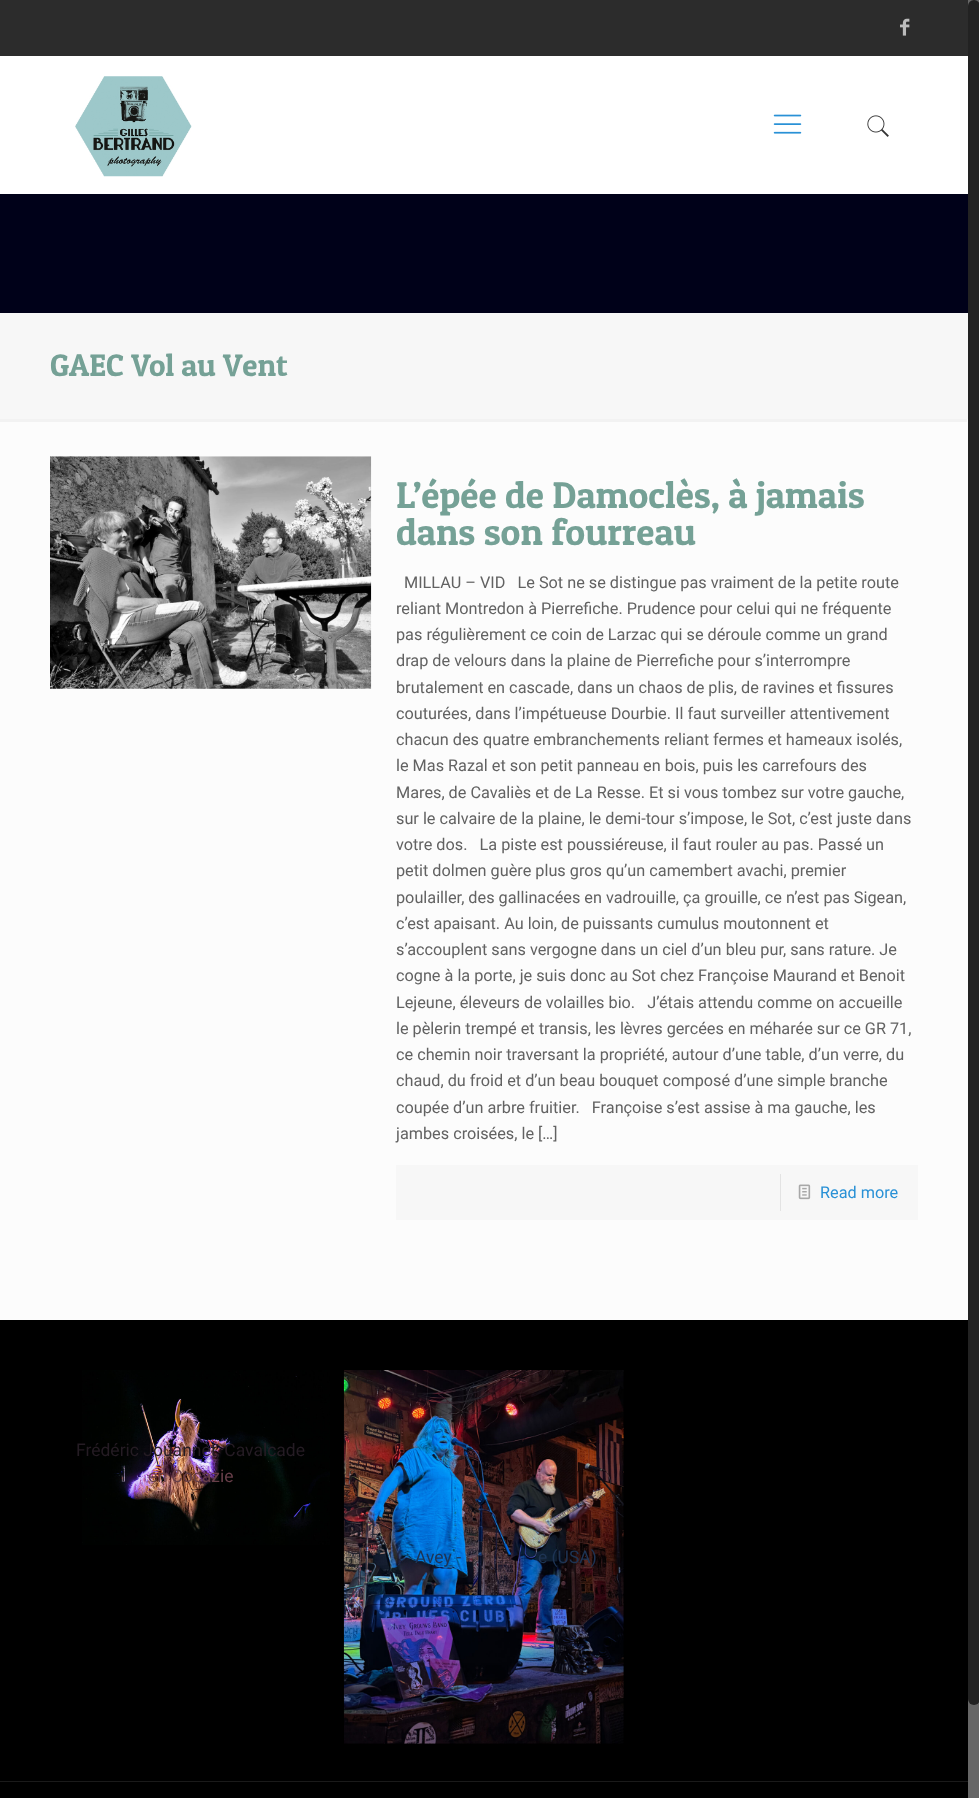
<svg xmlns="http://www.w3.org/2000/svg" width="979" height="1798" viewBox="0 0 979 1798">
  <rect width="100%" height="100%" fill="#fcfcfc"/>
  <path d="M0 194h968v119H0z" fill="#000119"/>
  <path d="M0 0h968v56H0z" fill="#2c2c2c"/>
  <image x="900" y="18" width="10" height="18" href="img/1.png"/>
  <path d="M0 56h968v138H0z" fill="#fff"/>
  <image x="75" y="76" width="117" height="101" href="img/2.png"/>
  <image x="773" y="114" width="29" height="20" href="img/3.png"/>
  <image x="867" y="115" width="22" height="22" href="img/4.png"/>
  <path d="M0 313h968v106H0z" fill="#f7f7f7"/>
  <path d="M0 419h967v3H0z" fill="#f2f2f2"/>
  <image x="50" y="456" width="322" height="233" href="img/5.png"/>
  <path d="M396 1165h522v55H396z" fill="#f7f7f7"/>
  <path d="M780 1174h1v37H780z" fill="#e3e3e3"/>
  <image x="798" y="1184" width="13" height="16" href="img/6.png"/>
  <path d="M0 1320h968v478H0z" fill="#000"/>
  <image x="82" y="1370" width="248" height="175" href="img/7.png"/>
  <image x="343" y="1370" width="281" height="374" href="img/8.png"/>
  <path d="M0 1781h968v1H0z" fill="#1a1a1a"/>
  <path d="M968 0h11v1798H968z" fill="#666"/>
  <rect x="968" width="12" height="1705" rx="6" fill="#222"/>
  <text x="50" y="376" font-family="Patua One" font-size="31.25" fill="#75a196">GAEC Vol au Vent</text>
  <g font-family="Patua One" font-size="37.5" fill="#75a196">
    <text x="396" y="508">L’épée de Damoclès, à jamais</text>
    <text x="396" y="545">dans son fourreau</text>
  </g>
  <g font-family="Roboto" font-size="16.25" fill="#626262">
    <text x="404" y="588" xml:space="preserve">MILLAU – VID   Le Sot ne se distingue pas vraiment de la petite route</text>
    <text x="396" y="614">reliant Montredon à Pierrefiche. Prudence pour celui qui ne fréquente</text>
    <text x="396" y="640">pas régulièrement ce coin de Larzac qui se déroule comme un grand</text>
    <text x="396" y="666">drap de velours dans la plaine de Pierrefiche pour s’interrompre</text>
    <text x="396" y="693">brutalement en cascade, dans un chaos de plis, de ravines et fissures</text>
    <text x="396" y="719">couturées, dans l’impétueuse Dourbie. Il faut surveiller attentivement</text>
    <text x="396" y="745">chacun des quatre embranchements reliant fermes et hameaux isolés,</text>
    <text x="396" y="771">le Mas Razal et son petit panneau en bois, puis les carrefours des</text>
    <text x="396" y="798">Mares, de Cavaliès et de La Resse. Et si vous tombez sur votre gauche,</text>
    <text x="396" y="824">sur le calvaire de la plaine, le demi-tour s’impose, le Sot, c’est juste dans</text>
    <text x="396" y="850" xml:space="preserve">votre dos.   La piste est poussiéreuse, il faut rouler au pas. Passé un</text>
    <text x="396" y="876">petit dolmen guère plus gros qu’un camembert avachi, premier</text>
    <text x="396" y="903">poulailler, des gallinacées en vadrouille, ça grouille, ce n’est pas Sigean,</text>
    <text x="396" y="929">c’est apaisant. Au loin, de puissants cumulus moutonnent et</text>
    <text x="396" y="955">s’accouplent sans vergogne dans un ciel d’un bleu pur, sans rature. Je</text>
    <text x="396" y="981">cogne à la porte, je suis donc au Sot chez Françoise Maurand et Benoit</text>
    <text x="396" y="1008" xml:space="preserve">Lejeune, éleveurs de volailles bio.   J’étais attendu comme on accueille</text>
    <text x="396" y="1034">le pèlerin trempé et transis, les lèvres gercées en méharée sur ce GR 71,</text>
    <text x="396" y="1060">ce chemin noir traversant la propriété, autour d’une table, d’un verre, du</text>
    <text x="396" y="1086">chaud, du froid et d’un beau bouquet composé d’une simple branche</text>
    <text x="396" y="1113" xml:space="preserve">coupée d’un arbre fruitier.   Françoise s’est assise à ma gauche, les</text>
    <text x="396" y="1139">jambes croisées, le […]</text>
  </g>
  <text x="820" y="1198" font-family="Roboto" font-size="16.25" fill="#2991d6">Read more</text>
  <text x="76" y="1456" font-family="Roboto" font-size="17.5" fill="#251c24">Frédéric Jouannet, Cavalcade</text>
  <text x="148" y="1482" font-family="Roboto" font-size="17.5" fill="#673f49">en Cocazie</text>
  <g font-family="Roboto" font-size="17.5" fill="#1e3454">
    <text x="415" y="1563">Avey -</text>
    <text x="538" y="1563">e (USA)</text>
  </g>
</svg>
